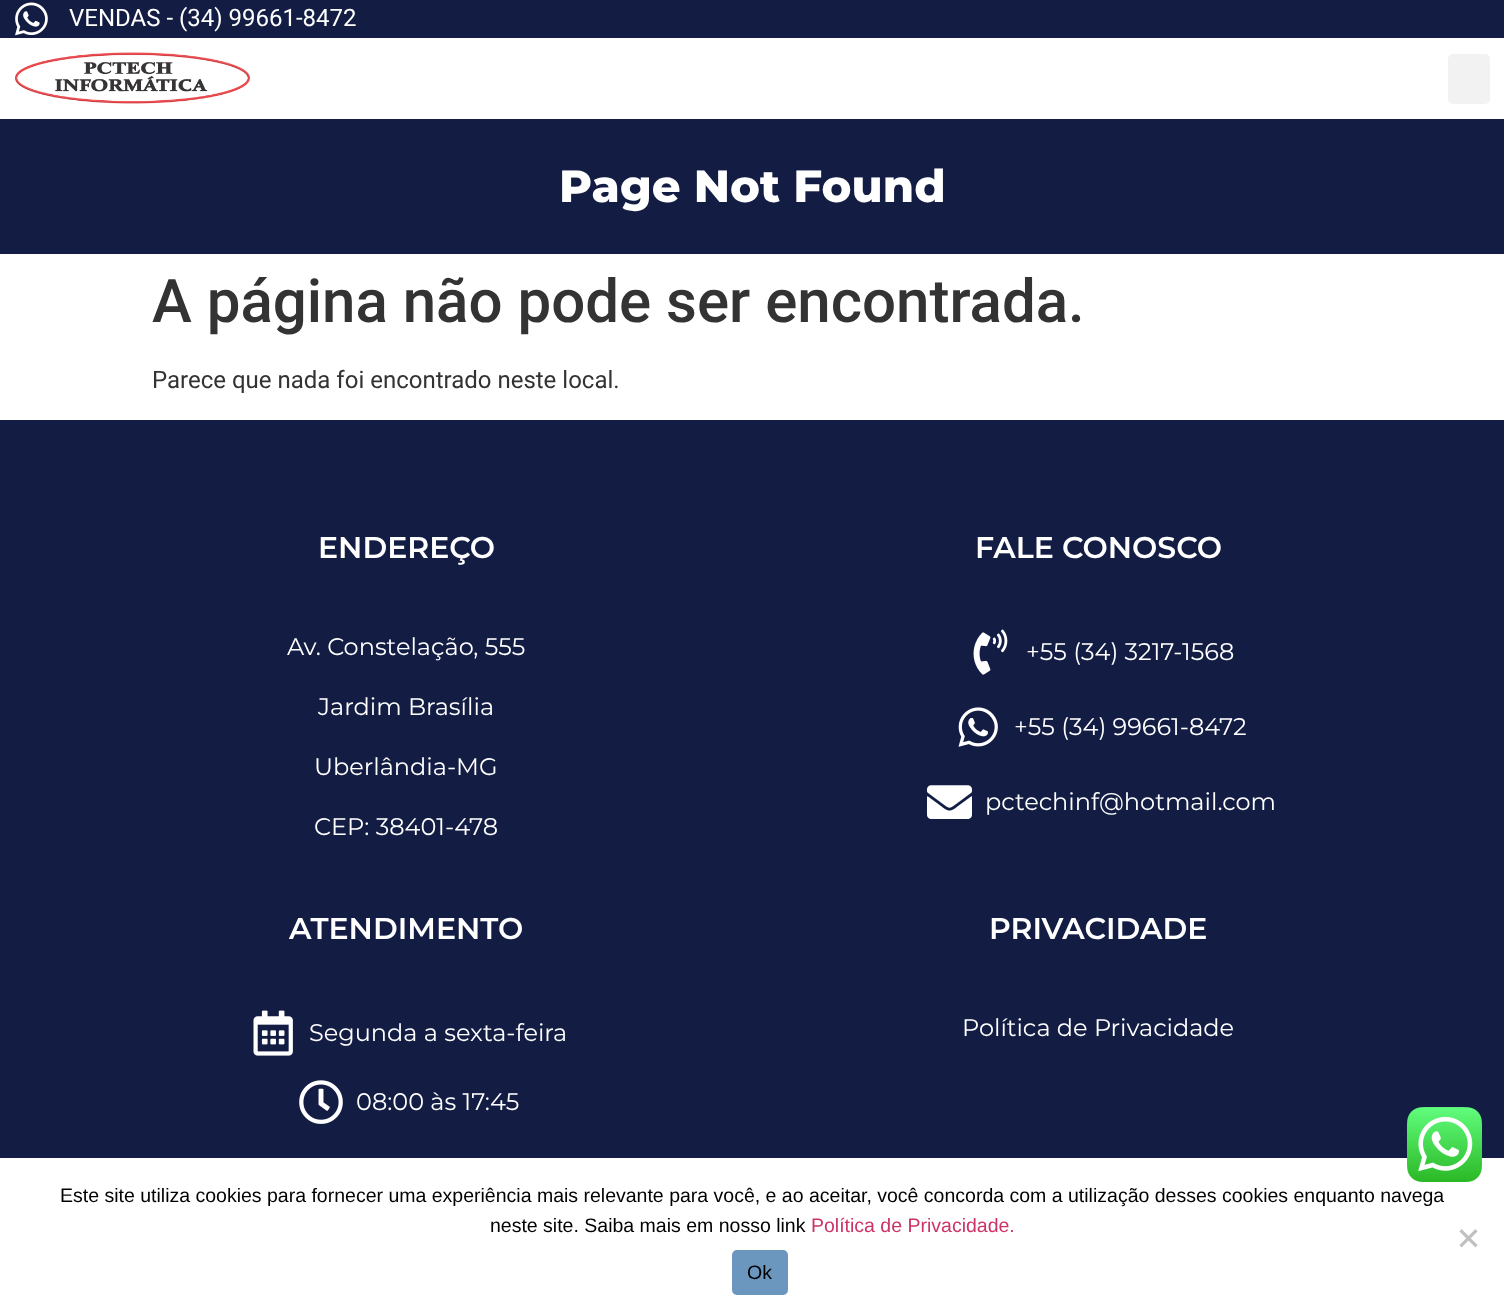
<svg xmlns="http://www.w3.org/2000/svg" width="1504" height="1316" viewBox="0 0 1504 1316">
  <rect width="100%" height="100%" fill="#fff"/>
  <path d="M0 0h1504v38H0z" fill="#131d44"/>
  <image x="15" y="2" width="33" height="34" href="img/1.png"/>
  <image x="15" y="52" width="236" height="52" href="img/2.png"/>
  <rect x="1448" y="54" width="42" height="50" rx="5" fill="#f2f2f2"/>
  <path d="M0 119h1504v135H0z" fill="#131d44"/>
  <path d="M0 420h1504v738H0z" fill="#131d44"/>
  <image x="973" y="629" width="35" height="46" href="img/3.png"/>
  <image x="958" y="707" width="40" height="40" href="img/4.png"/>
  <image x="927" y="785" width="45" height="34" href="img/5.png"/>
  <image x="253" y="1010" width="40" height="46" href="img/6.png"/>
  <image x="299" y="1080" width="44" height="44" href="img/7.png"/>
  <image x="1407" y="1107" width="75" height="75" href="img/8.png"/>
  <path d="M1475.5 1229L1477.5 1231.5L1461.5 1247.5L1459.5 1245Z" fill="#c0c0c0"/>
  <path d="M1459.5 1231.5L1461.5 1229L1477.5 1245L1475.5 1247.5Z" fill="#c0c0c0"/>
  <rect x="732" y="1250" width="56" height="45" rx="5" fill="#6b97bf"/>
  <text x="69" y="26" font-family="Roboto" font-size="24" fill="#fff">VENDAS - (34) 99661-8472</text>
  <text x="559" y="202" font-family="Montserrat" font-size="45" font-weight="800" fill="#fff">Page Not Found</text>
  <text x="152" y="322" font-family="Roboto" font-size="60" font-weight="500" fill="#333">A página não pode ser encontrada.</text>
  <text x="152" y="388" font-family="Roboto" font-size="24" fill="#333">Parece que nada foi encontrado neste local.</text>
  <text x="318" y="558" font-family="Montserrat" font-size="30" font-weight="600" fill="#fff">ENDEREÇO</text>
  <g font-family="Montserrat" font-size="24" fill="#fff">
    <text x="287" y="655">Av. Constelação, 555</text>
    <text x="318" y="715">Jardim Brasília</text>
    <text x="314" y="775">Uberlândia-MG</text>
    <text x="314" y="835">CEP: 38401-478</text>
  </g>
  <text x="975" y="558" font-family="Montserrat" font-size="30" font-weight="600" fill="#fff">FALE CONOSCO</text>
  <g font-family="Montserrat" font-size="24" fill="#fff">
    <text x="1026" y="660">+55 (34) 3217-1568</text>
    <text x="1014" y="735">+55 (34) 99661-8472</text>
    <text x="985" y="810">pctechinf@hotmail.com</text>
  </g>
  <text x="289" y="939" font-family="Montserrat" font-size="30" font-weight="600" fill="#fff">ATENDIMENTO</text>
  <g font-family="Montserrat" font-size="24" fill="#fff">
    <text x="309" y="1041">Segunda a sexta-feira</text>
    <text x="356" y="1110">08:00 às 17:45</text>
  </g>
  <text x="989" y="939" font-family="Montserrat" font-size="30" font-weight="600" fill="#fff">PRIVACIDADE</text>
  <text x="962" y="1036" font-family="Montserrat" font-size="24" fill="#fff">Política de Privacidade</text>
  <g font-family="Liberation Sans" font-size="19.5" fill="#000">
    <text x="60" y="1202">Este site utiliza cookies para fornecer uma experiência mais relevante para você, e ao aceitar, você concorda com a utilização desses cookies enquanto navega</text>
    <text x="490" y="1232">neste site. Saiba mais em nosso link</text>
  </g>
  <text x="811" y="1232" font-family="Liberation Sans" font-size="19.5" fill="#c36">Política de Privacidade.</text>
  <text x="747" y="1279" font-family="Liberation Sans" font-size="19.5" fill="#000">Ok</text>
</svg>
